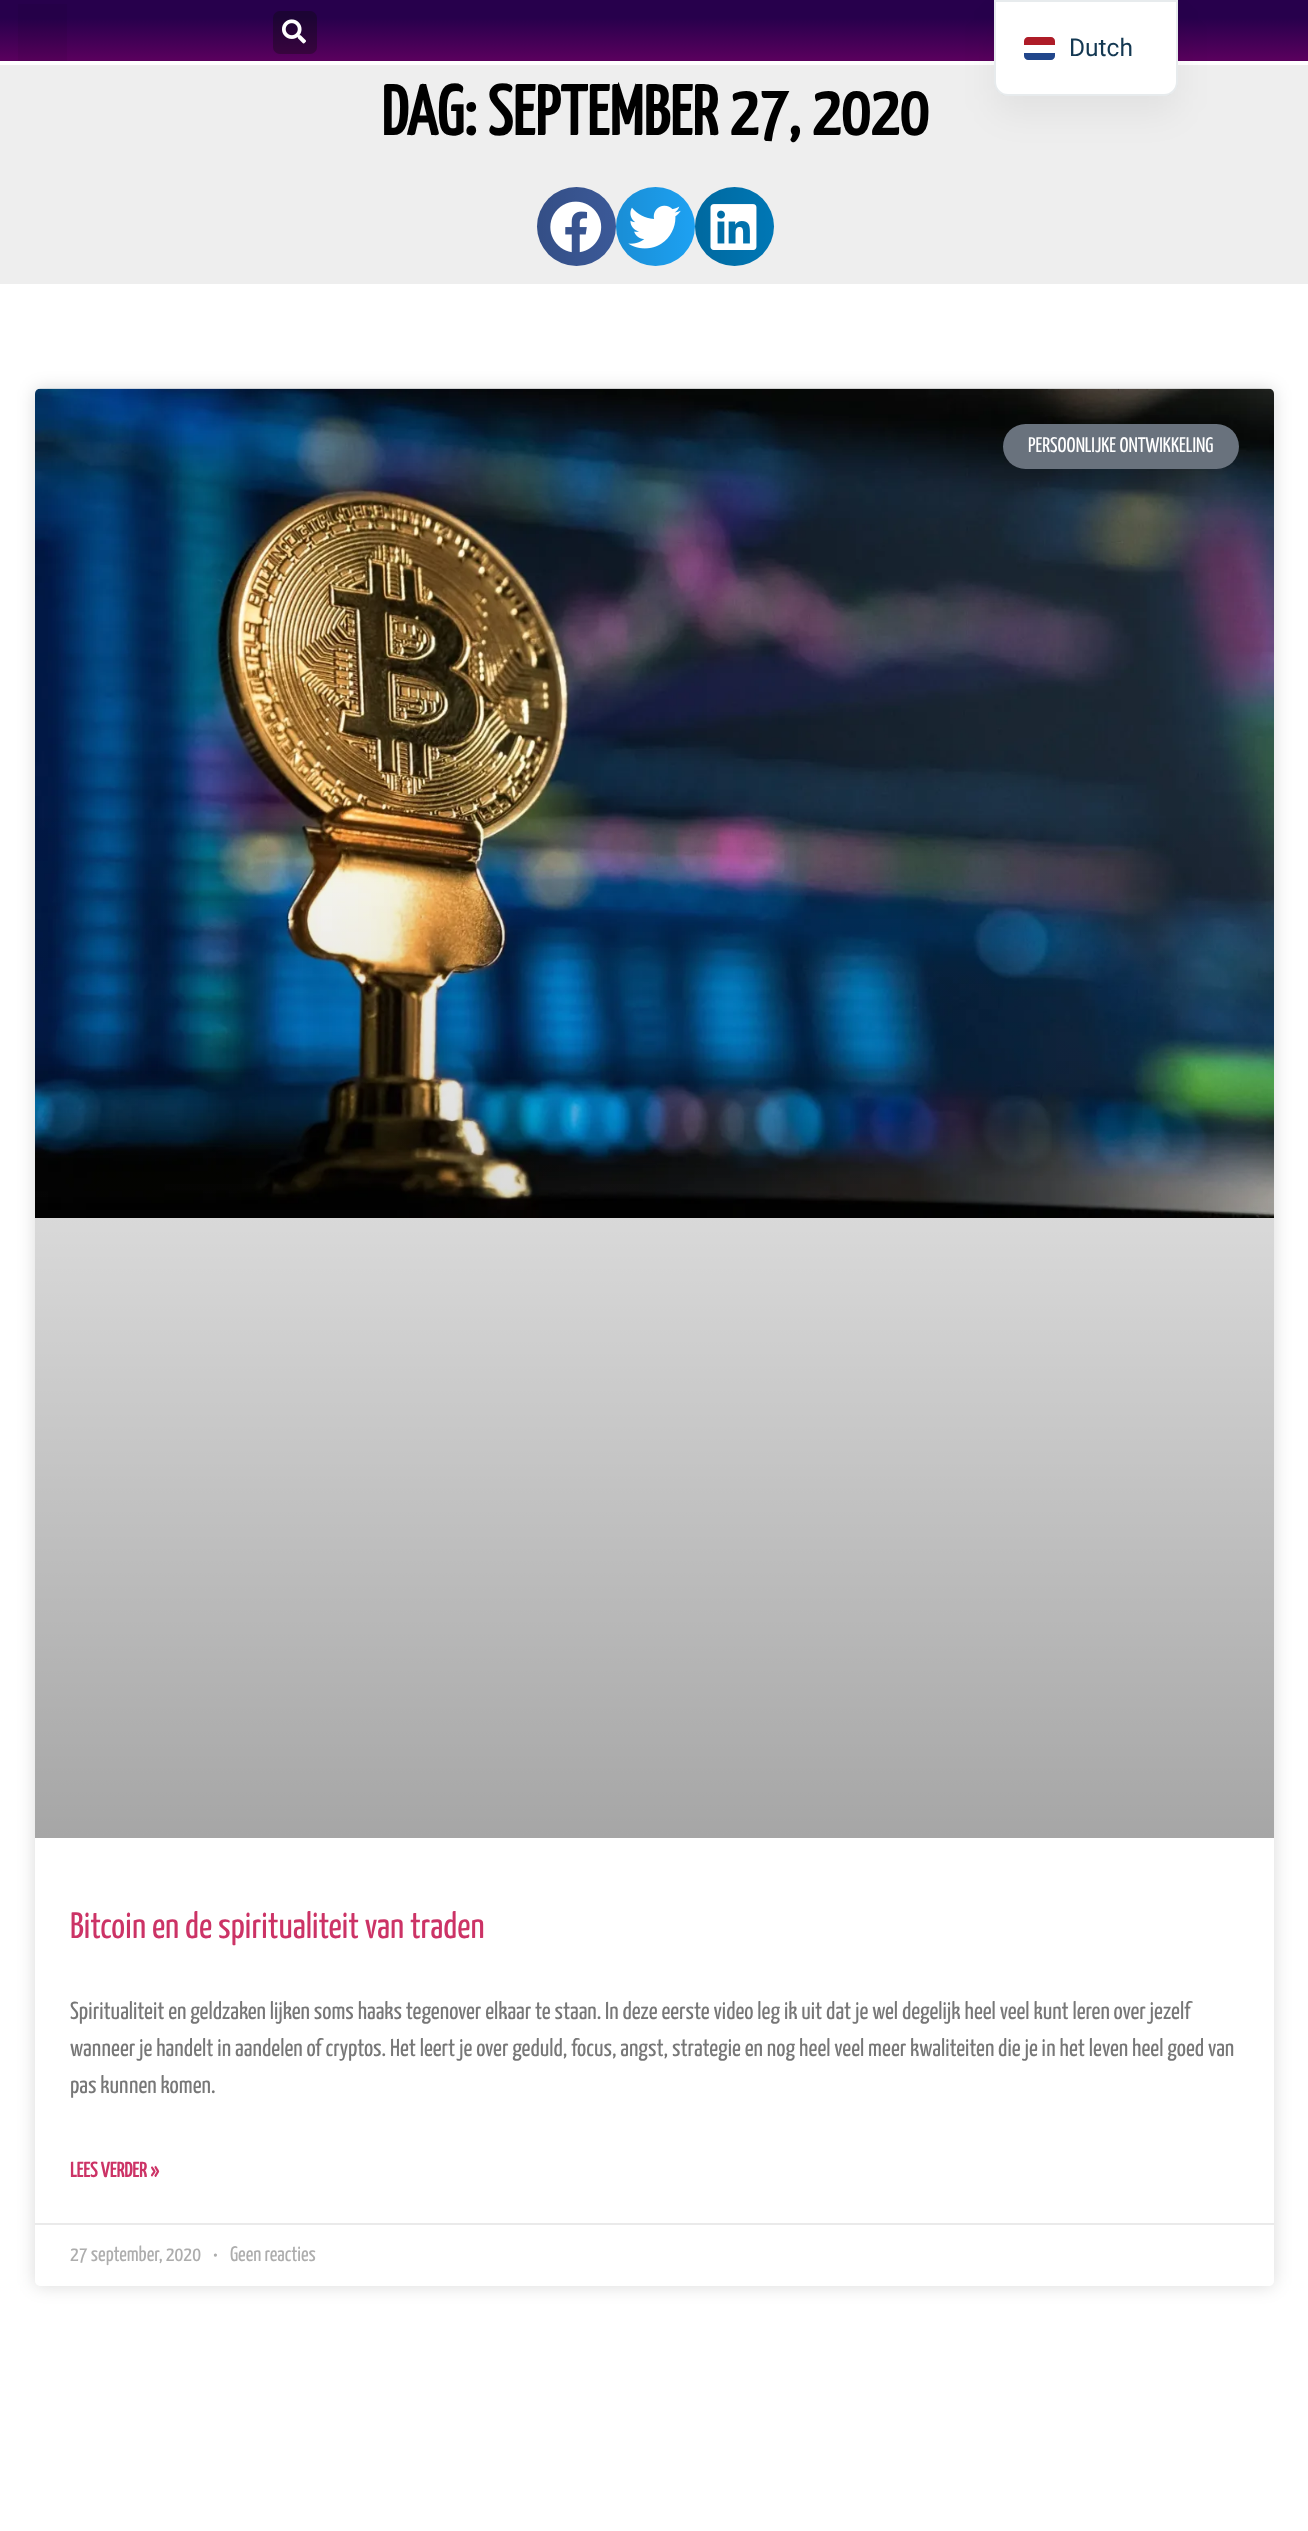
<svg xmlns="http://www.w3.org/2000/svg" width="1308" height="2531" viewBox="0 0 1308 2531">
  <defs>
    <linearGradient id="g1" gradientUnits="userSpaceOnUse" x1="655" y1="0" x2="655" y2="61"><stop offset="0.29" stop-color="#27004c"/><stop offset="1" stop-color="#5b005e"/></linearGradient>
    <linearGradient id="g2" gradientUnits="userSpaceOnUse" x1="537" y1="227" x2="616" y2="227"><stop offset="0" stop-color="#000" stop-opacity="0.12"/><stop offset="1" stop-color="#000" stop-opacity="0"/></linearGradient>
    <linearGradient id="g3" gradientUnits="userSpaceOnUse" x1="616" y1="227" x2="695" y2="227"><stop offset="0" stop-color="#000" stop-opacity="0.12"/><stop offset="1" stop-color="#000" stop-opacity="0"/></linearGradient>
    <linearGradient id="g4" gradientUnits="userSpaceOnUse" x1="695" y1="227" x2="774" y2="227"><stop offset="0" stop-color="#000" stop-opacity="0.12"/><stop offset="1" stop-color="#000" stop-opacity="0"/></linearGradient>
    <linearGradient id="g5" gradientUnits="userSpaceOnUse" x1="655" y1="1838" x2="655" y2="389"><stop offset="0" stop-color="#000" stop-opacity="0.35"/><stop offset="0.75" stop-color="#000" stop-opacity="0"/></linearGradient>
  </defs>
  <rect width="100%" height="100%" fill="#fff"/>
  <path d="M0 0h1308v61H0z" fill="url(#g1)"/>
  <path d="M0 65h1308v219H0z" fill="#eee"/>
  <rect x="994" y="18" width="184" height="96" rx="14" fill="#0000000d" filter="blur(17.5px)"/>
  <path d="M994 0H1178V82C1178 89.5 1171.5 96 1164 96H1008C1000.5 96 994 89.5 994 82Z" fill="#fff"/>
  <path d="M995 1H1177V82C1177 89 1171 95 1164 95H1008C1001 95 995 89 995 82Z" fill="none" stroke="#1438521a" stroke-width="2"/>
  <path d="M1028 37H1051C1053 37 1055 39 1055 41V45H1024V41C1024 39 1026 37 1028 37Z" fill="#ae1c28"/>
  <path d="M1024 53H1055V56C1055 58 1053 60 1051 60H1028C1026 60 1024 58 1024 56Z" fill="#21468b"/>
  <path d="M18 4h49v57H18z" fill="#0000000d"/>
  <rect x="273" y="11" width="44" height="43" rx="7" fill="#0c0c0c5c"/>
  <image x="282" y="19" width="24" height="25" href="img/1.png"/>
  <circle cx="576.5" cy="226.5" r="39.5" fill="#3b5998"/>
  <circle cx="576.5" cy="226.5" r="39.5" fill="url(#g2)"/>
  <image x="550" y="201" width="52" height="52" href="img/2.png"/>
  <circle cx="655.5" cy="226.5" r="39.5" fill="#1da1f2"/>
  <circle cx="655.5" cy="226.5" r="39.5" fill="url(#g3)"/>
  <image x="628" y="205" width="53" height="44" href="img/3.png"/>
  <circle cx="734.5" cy="226.5" r="39.5" fill="#0077b5"/>
  <circle cx="734.5" cy="226.5" r="39.5" fill="url(#g4)"/>
  <image x="710" y="204" width="47" height="46" href="img/4.png"/>
  <rect x="35" y="389" width="1239" height="1897" rx="5" fill="#00000026" filter="blur(9px)"/>
  <rect x="35" y="389" width="1239" height="1897" rx="5" fill="#fff"/>
  <image x="35" y="388" width="1239" height="830" href="img/5.png"/>
  <path d="M35 818h1239v1020H35z" fill="url(#g5)"/>
  <rect x="1003" y="424" width="236" height="45" rx="22.5" fill="#69727d"/>
  <path d="M35 2223h1239v2H35z" fill="#eaeaea"/>
  <text x="1069" y="56" font-family="Roboto" font-size="24.5" fill="#143852">Dutch</text>
  <text x="381" y="135" font-family="Yanone Kaffeesatz" font-size="70" font-weight="bold" fill="#000">DAG: SEPTEMBER 27, 2020</text>
  <text x="1028" y="452" font-family="Yanone Kaffeesatz" font-size="21" font-weight="200" fill="#fff">PERSOONLIJKE ONTWIKKELING</text>
  <text x="70" y="1938" font-family="Yanone Kaffeesatz" font-size="36.75" font-weight="200" fill="#c36">Bitcoin en de spiritualiteit van traden</text>
  <g font-family="Yanone Kaffeesatz" font-size="24.5" font-weight="200" fill="#777">
    <text x="70" y="2019">Spiritualiteit en geldzaken lijken soms haaks tegenover elkaar te staan. In deze eerste video leg ik uit dat je wel degelijk heel veel kunt leren over jezelf</text>
    <text x="70" y="2056">wanneer je handelt in aandelen of cryptos. Het leert je over geduld, focus, angst, strategie en nog heel veel meer kwaliteiten die je in het leven heel goed van</text>
    <text x="70" y="2093">pas kunnen komen.</text>
  </g>
  <text x="70" y="2177" font-family="Yanone Kaffeesatz" font-size="21" font-weight="bold" fill="#c36">LEES VERDER »</text>
  <g font-family="Yanone Kaffeesatz" font-size="21" font-weight="200" fill="#adadad">
    <text x="70" y="2261">27 september, 2020</text>
    <text x="213" y="2261">•</text>
    <text x="230" y="2261">Geen reacties</text>
  </g>
</svg>
